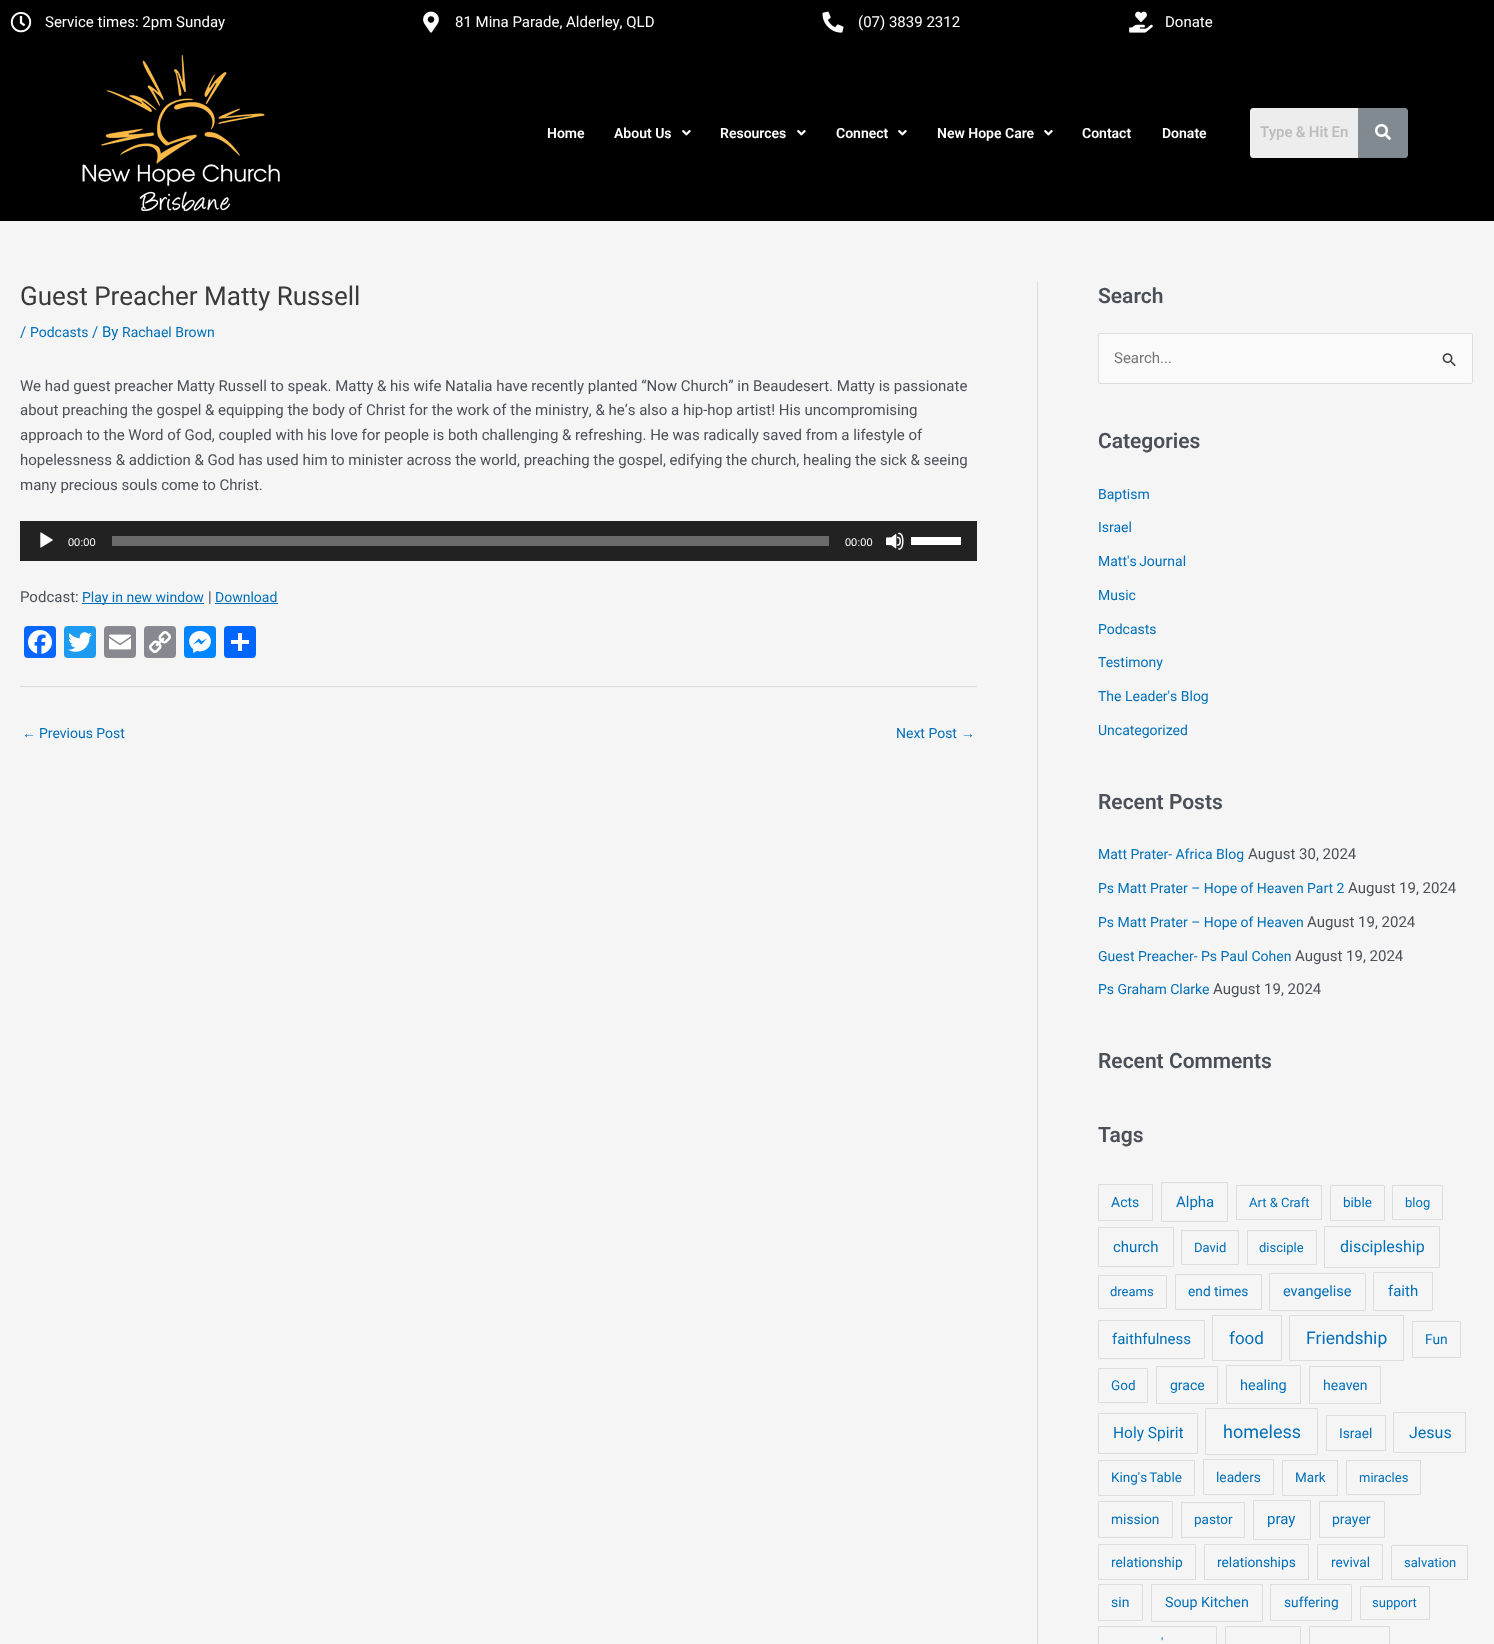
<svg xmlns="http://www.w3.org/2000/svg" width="1494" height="1644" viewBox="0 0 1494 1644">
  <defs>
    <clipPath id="clip1"><path d="M1260 123h88v18H1260z"/></clipPath>
  </defs>
  <rect width="100%" height="100%" fill="#f5f5f5"/>
  <path d="M0 0h1494v221H0z" fill="#000"/>
  <image x="10" y="12" width="22" height="21" href="img/1.png"/>
  <image x="423" y="11" width="16" height="22" href="img/2.png"/>
  <image x="822" y="11" width="22" height="22" href="img/3.png"/>
  <image x="1129" y="11" width="24" height="22" href="img/4.png"/>
  <image x="82" y="55" width="198" height="156" href="img/5.png"/>
  <image x="682" y="130" width="9" height="6" href="img/6.png"/>
  <image x="797" y="130" width="9" height="6" href="img/6.png"/>
  <image x="898" y="130" width="9" height="6" href="img/6.png"/>
  <image x="1044" y="130" width="9" height="6" href="img/6.png"/>
  <path d="M1253 108H1358V158H1253C1251.5 158 1250 156.5 1250 155V111C1250 109.5 1251.5 108 1253 108Z" fill="#ededed"/>
  <path d="M1358 108H1405C1406.5 108 1408 109.5 1408 111V155C1408 156.5 1406.5 158 1405 158H1358Z" fill="#818a91"/>
  <image x="1375" y="124" width="16" height="16" href="img/7.png"/>
  <path d="M1037 281h1v1363H1037z" fill="#ddd"/>
  <path d="M20 521h957v40H20z" fill="#222"/>
  <image x="40" y="532" width="13" height="16" href="img/8.png"/>
  <path d="M112 536h717v10H112z" fill="#6b6b6b"/>
  <image x="886" y="532" width="18" height="18" href="img/9.png"/>
  <path d="M911 537h50v8H911z" fill="#fff"/>
  <path d="M82 603h122v1H82z" fill="#0170b9"/>
  <path d="M215 603h63v1H215z" fill="#0170b9"/>
  <rect x="24" y="626" width="32" height="32" rx="4" fill="#0866ff"/>
  <image x="28" y="630" width="24" height="24" href="img/10.png"/>
  <rect x="64" y="626" width="32" height="32" rx="4" fill="#1d9bf0"/>
  <image x="68" y="632" width="24" height="20" href="img/11.png"/>
  <rect x="104" y="626" width="32" height="32" rx="4" fill="#888990"/>
  <image x="109" y="634" width="22" height="16" href="img/12.png"/>
  <rect x="144" y="626" width="32" height="32" rx="4" fill="#888990"/>
  <image x="149" y="631" width="22" height="22" href="img/13.png"/>
  <rect x="184" y="626" width="32" height="32" rx="4" fill="#0084ff"/>
  <image x="189" y="631" width="22" height="22" href="img/14.png"/>
  <rect x="224" y="626" width="32" height="32" rx="4" fill="#0166ff"/>
  <path d="M238 633h4v18H238z" fill="#fff"/>
  <path d="M231 640h18v4H231z" fill="#fff"/>
  <path d="M20 686h957v1H20z" fill="#ddd"/>
  <rect x="1098.5" y="333.5" width="374" height="50" rx="1.5" fill="#fafafa" stroke="#ddd"/>
  <image x="1442" y="353" width="14" height="14" href="img/15.png"/>
  <path d="M1098.5 1184.5h54v36H1098.5z" fill="none" stroke="#ddd"/>
  <path d="M1161.5 1182.5h66v39H1161.5z" fill="none" stroke="#ddd"/>
  <path d="M1236.5 1185.5h85v34H1236.5z" fill="none" stroke="#ddd"/>
  <path d="M1330.5 1185.5h54v35H1330.5z" fill="none" stroke="#ddd"/>
  <path d="M1392.5 1185.5h50v34H1392.5z" fill="none" stroke="#ddd"/>
  <path d="M1098.5 1227.5h75v39H1098.5z" fill="none" stroke="#ddd"/>
  <path d="M1181.5 1230.5h57v34H1181.5z" fill="none" stroke="#ddd"/>
  <path d="M1247.5 1230.5h69v34H1247.5z" fill="none" stroke="#ddd"/>
  <path d="M1324.5 1226.5h115v41H1324.5z" fill="none" stroke="#ddd"/>
  <path d="M1098.5 1275.5h68v33H1098.5z" fill="none" stroke="#ddd"/>
  <path d="M1175.5 1274.5h86v35H1175.5z" fill="none" stroke="#ddd"/>
  <path d="M1269.5 1273.5h96v37H1269.5z" fill="none" stroke="#ddd"/>
  <path d="M1373.5 1272.5h59v38H1373.5z" fill="none" stroke="#ddd"/>
  <path d="M1098.5 1320.5h106v38H1098.5z" fill="none" stroke="#ddd"/>
  <path d="M1212.5 1315.5h69v45H1212.5z" fill="none" stroke="#ddd"/>
  <path d="M1289.5 1315.5h114v45H1289.5z" fill="none" stroke="#ddd"/>
  <path d="M1412.5 1321.5h48v36H1412.5z" fill="none" stroke="#ddd"/>
  <path d="M1098.5 1368.5h49v34H1098.5z" fill="none" stroke="#ddd"/>
  <path d="M1156.5 1366.5h61v37H1156.5z" fill="none" stroke="#ddd"/>
  <path d="M1226.5 1365.5h74v38H1226.5z" fill="none" stroke="#ddd"/>
  <path d="M1309.5 1366.5h71v37H1309.5z" fill="none" stroke="#ddd"/>
  <path d="M1098.5 1413.5h99v40H1098.5z" fill="none" stroke="#ddd"/>
  <path d="M1205.5 1408.5h112v46H1205.5z" fill="none" stroke="#ddd"/>
  <path d="M1326.5 1415.5h59v35H1326.5z" fill="none" stroke="#ddd"/>
  <path d="M1393.5 1412.5h72v40H1393.5z" fill="none" stroke="#ddd"/>
  <path d="M1098.5 1460.5h96v35H1098.5z" fill="none" stroke="#ddd"/>
  <path d="M1203.5 1459.5h70v35H1203.5z" fill="none" stroke="#ddd"/>
  <path d="M1282.5 1460.5h55v35H1282.5z" fill="none" stroke="#ddd"/>
  <path d="M1346.5 1460.5h74v34H1346.5z" fill="none" stroke="#ddd"/>
  <path d="M1098.5 1501.5h74v36H1098.5z" fill="none" stroke="#ddd"/>
  <path d="M1181.5 1502.5h63v35H1181.5z" fill="none" stroke="#ddd"/>
  <path d="M1253.5 1500.5h57v39H1253.5z" fill="none" stroke="#ddd"/>
  <path d="M1319.5 1501.5h65v36H1319.5z" fill="none" stroke="#ddd"/>
  <path d="M1098.5 1544.5h97v35H1098.5z" fill="none" stroke="#ddd"/>
  <path d="M1204.5 1544.5h104v35H1204.5z" fill="none" stroke="#ddd"/>
  <path d="M1317.5 1544.5h65v35H1317.5z" fill="none" stroke="#ddd"/>
  <path d="M1391.5 1545.5h76v34H1391.5z" fill="none" stroke="#ddd"/>
  <path d="M1098.5 1584.5h44v36H1098.5z" fill="none" stroke="#ddd"/>
  <path d="M1151.5 1584.5h111v37H1151.5z" fill="none" stroke="#ddd"/>
  <path d="M1270.5 1584.5h81v36H1270.5z" fill="none" stroke="#ddd"/>
  <path d="M1360.5 1586.5h69v33H1360.5z" fill="none" stroke="#ddd"/>
  <path d="M1098.5 1626.5h118v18H1098.5z" fill="none" stroke="#ddd"/>
  <path d="M1225.5 1626.5h75v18H1225.5z" fill="none" stroke="#ddd"/>
  <path d="M1309.5 1626.5h80v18H1309.5z" fill="none" stroke="#ddd"/>
  <g font-family="Roboto" font-size="15" fill="#fff">
    <text x="45" y="27">Service times: 2pm Sunday</text>
    <text x="455" y="27">81 Mina Parade, Alderley, QLD</text>
    <text x="858" y="27">(07) 3839 2312</text>
    <text x="1165" y="27">Donate</text>
  </g>
  <g font-family="Roboto" font-size="14" font-weight="600" fill="#fff">
    <text x="547" y="138">Home</text>
    <text x="614" y="138">About Us</text>
    <text x="720" y="138">Resources</text>
    <text x="836" y="138">Connect</text>
    <text x="937" y="138">New Hope Care</text>
    <text x="1082" y="138">Contact</text>
    <text x="1162" y="138">Donate</text>
  </g>
  <g clip-path="url(#clip1)">
    <text x="1260" y="137" word-spacing="-0.5" font-family="Roboto" font-size="15" font-weight="600" fill="#bdbdbd">Type &amp; Hit En</text>
  </g>
  <text x="20" y="305" font-family="Roboto" font-size="26" fill="#3a3a3a">Guest Preacher Matty Russell</text>
  <text x="20" y="337" font-family="Roboto" font-size="15" fill="#0170b9">/</text>
  <text x="30" y="337" font-family="Roboto" font-size="14" fill="#0170b9">Podcasts</text>
  <text x="92" y="337" font-family="Roboto" font-size="15" fill="#0170b9">/ By</text>
  <text x="122" y="337" font-family="Roboto" font-size="14" fill="#0170b9">Rachael Brown</text>
  <g font-family="Roboto" font-size="15" fill="#4b4f58">
    <text x="20" y="391">We had guest preacher Matty Russell to speak. Matty &amp; his wife Natalia have recently planted “Now Church” in Beaudesert. Matty is passionate</text>
    <text x="20" y="415">about preaching the gospel &amp; equipping the body of Christ for the work of the ministry, &amp; he’s also a hip-hop artist! His uncompromising</text>
    <text x="20" y="440">approach to the Word of God, coupled with his love for people is both challenging &amp; refreshing. He was radically saved from a lifestyle of</text>
    <text x="20" y="465">hopelessness &amp; addiction &amp; God has used him to minister across the world, preaching the gospel, edifying the church, healing the sick &amp; seeing</text>
    <text x="20" y="490">many precious souls come to Christ.</text>
  </g>
  <g font-family="Liberation Sans" font-size="11" fill="#fff">
    <text x="68" y="546">00:00</text>
    <text x="845" y="546">00:00</text>
  </g>
  <text x="20" y="602" font-family="Roboto" font-size="15" fill="#4b4f58">Podcast:</text>
  <text x="82" y="602" font-family="Roboto" font-size="14" fill="#0170b9">Play in new window</text>
  <text x="208" y="602" font-family="Roboto" font-size="15" fill="#4b4f58">|</text>
  <text x="215" y="602" font-family="Roboto" font-size="14" fill="#0170b9">Download</text>
  <text x="22" y="738" font-family="Liberation Sans" font-size="14" fill="#0170b9">←</text>
  <g font-family="Roboto" font-size="14" fill="#0170b9">
    <text x="39" y="738">Previous Post</text>
    <text x="896" y="738">Next Post</text>
  </g>
  <text x="961" y="738" font-family="Liberation Sans" font-size="14" fill="#0170b9">→</text>
  <text x="1098" y="303" font-family="Roboto" font-size="21" font-weight="600" fill="#4b4f58">Search</text>
  <text x="1114" y="363" font-family="Roboto" font-size="15" fill="#757575">Search...</text>
  <text x="1098" y="448" font-family="Roboto" font-size="21" font-weight="600" fill="#4b4f58">Categories</text>
  <g font-family="Roboto" font-size="14" fill="#0170b9">
    <text x="1098" y="499">Baptism</text>
    <text x="1098" y="532">Israel</text>
    <text x="1098" y="566" word-spacing="-1">Matt's Journal</text>
    <text x="1098" y="600">Music</text>
    <text x="1098" y="634">Podcasts</text>
    <text x="1098" y="667">Testimony</text>
    <text x="1098" y="701">The Leader's Blog</text>
    <text x="1098" y="735">Uncategorized</text>
  </g>
  <text x="1098" y="809" font-family="Roboto" font-size="21" font-weight="600" fill="#4b4f58">Recent Posts</text>
  <text x="1098" y="859" font-family="Roboto" font-size="14" fill="#0170b9">Matt Prater- Africa Blog</text>
  <text x="1248" y="859" font-family="Roboto" font-size="15" fill="#4b4f58">August 30, 2024</text>
  <text x="1098" y="893" font-family="Roboto" font-size="14" fill="#0170b9">Ps Matt Prater – Hope of Heaven Part 2</text>
  <text x="1348" y="893" font-family="Roboto" font-size="15" fill="#4b4f58">August 19, 2024</text>
  <text x="1098" y="927" font-family="Roboto" font-size="14" fill="#0170b9">Ps Matt Prater – Hope of Heaven</text>
  <text x="1307" y="927" font-family="Roboto" font-size="15" fill="#4b4f58">August 19, 2024</text>
  <text x="1098" y="961" font-family="Roboto" font-size="14" fill="#0170b9">Guest Preacher- Ps Paul Cohen</text>
  <text x="1295" y="961" font-family="Roboto" font-size="15" fill="#4b4f58">August 19, 2024</text>
  <text x="1098" y="994" font-family="Roboto" font-size="14" fill="#0170b9">Ps Graham Clarke</text>
  <text x="1213" y="994" font-family="Roboto" font-size="15" fill="#4b4f58">August 19, 2024</text>
  <g font-family="Roboto" font-size="21" font-weight="600" fill="#4b4f58">
    <text x="1098" y="1068">Recent Comments</text>
    <text x="1098" y="1142">Tags</text>
  </g>
  <text x="1111" y="1207" font-family="Roboto" font-size="14" fill="#0170b9">Acts</text>
  <text x="1176" y="1207" font-family="Roboto" font-size="15" fill="#0170b9">Alpha</text>
  <text x="1249" y="1207" font-family="Roboto" font-size="13" fill="#0170b9">Art &amp; Craft</text>
  <text x="1343" y="1207" font-family="Roboto" font-size="13.5" fill="#0170b9">bible</text>
  <text x="1405" y="1207" font-family="Roboto" font-size="13" fill="#0170b9">blog</text>
  <text x="1113" y="1252" font-family="Roboto" font-size="15" fill="#0170b9">church</text>
  <g font-family="Roboto" font-size="13" fill="#0170b9">
    <text x="1194" y="1252">David</text>
    <text x="1259" y="1252">disciple</text>
  </g>
  <text x="1340" y="1252" font-family="Roboto" font-size="16" fill="#0170b9">discipleship</text>
  <text x="1110" y="1296" font-family="Roboto" font-size="13" fill="#0170b9">dreams</text>
  <text x="1188" y="1296" font-family="Roboto" font-size="13.75" fill="#0170b9">end times</text>
  <text x="1283" y="1296" font-family="Roboto" font-size="14.5" fill="#0170b9">evangelise</text>
  <g font-family="Roboto" font-size="15" fill="#0170b9">
    <text x="1388" y="1296">faith</text>
    <text x="1112" y="1344">faithfulness</text>
  </g>
  <text x="1229" y="1344" font-family="Roboto" font-size="17" fill="#0170b9">food</text>
  <text x="1306" y="1344" font-family="Roboto" font-size="17.5" fill="#0170b9">Friendship</text>
  <text x="1425" y="1344" font-family="Roboto" font-size="13.75" fill="#0170b9">Fun</text>
  <text x="1111" y="1390" font-family="Roboto" font-size="13.5" fill="#0170b9">God</text>
  <text x="1170" y="1390" font-family="Roboto" font-size="14" fill="#0170b9">grace</text>
  <text x="1240" y="1390" font-family="Roboto" font-size="14.5" fill="#0170b9">healing</text>
  <text x="1323" y="1390" font-family="Roboto" font-size="14" fill="#0170b9">heaven</text>
  <text x="1113" y="1438" font-family="Roboto" font-size="15.5" fill="#0170b9">Holy Spirit</text>
  <text x="1223" y="1438" font-family="Roboto" font-size="18" fill="#0170b9">homeless</text>
  <text x="1339" y="1438" font-family="Roboto" font-size="13.75" fill="#0170b9">Israel</text>
  <text x="1409" y="1438" font-family="Roboto" font-size="16" fill="#0170b9">Jesus</text>
  <text x="1111" y="1482" word-spacing="-1" font-family="Roboto" font-size="13.5" fill="#0170b9">King's Table</text>
  <text x="1216" y="1482" font-family="Roboto" font-size="13.75" fill="#0170b9">leaders</text>
  <text x="1295" y="1482" font-family="Roboto" font-size="13.5" fill="#0170b9">Mark</text>
  <text x="1359" y="1482" font-family="Roboto" font-size="13" fill="#0170b9">miracles</text>
  <text x="1111" y="1524" font-family="Roboto" font-size="13.75" fill="#0170b9">mission</text>
  <text x="1194" y="1524" font-family="Roboto" font-size="13.5" fill="#0170b9">pastor</text>
  <text x="1267" y="1524" font-family="Roboto" font-size="15" fill="#0170b9">pray</text>
  <text x="1332" y="1524" font-family="Roboto" font-size="14" fill="#0170b9">prayer</text>
  <g font-family="Roboto" font-size="13.75" fill="#0170b9">
    <text x="1111" y="1567">relationship</text>
    <text x="1217" y="1567">relationships</text>
    <text x="1331" y="1567">revival</text>
  </g>
  <text x="1404" y="1567" font-family="Roboto" font-size="13" fill="#0170b9">salvation</text>
  <text x="1111" y="1607" font-family="Roboto" font-size="14" fill="#0170b9">sin</text>
  <text x="1165" y="1607" font-family="Roboto" font-size="14.25" fill="#0170b9">Soup Kitchen</text>
  <text x="1284" y="1607" font-family="Roboto" font-size="13.75" fill="#0170b9">suffering</text>
  <g font-family="Roboto" font-size="13" fill="#0170b9">
    <text x="1372" y="1607">support</text>
    <text x="1161" y="1647">'</text>
  </g>
</svg>
